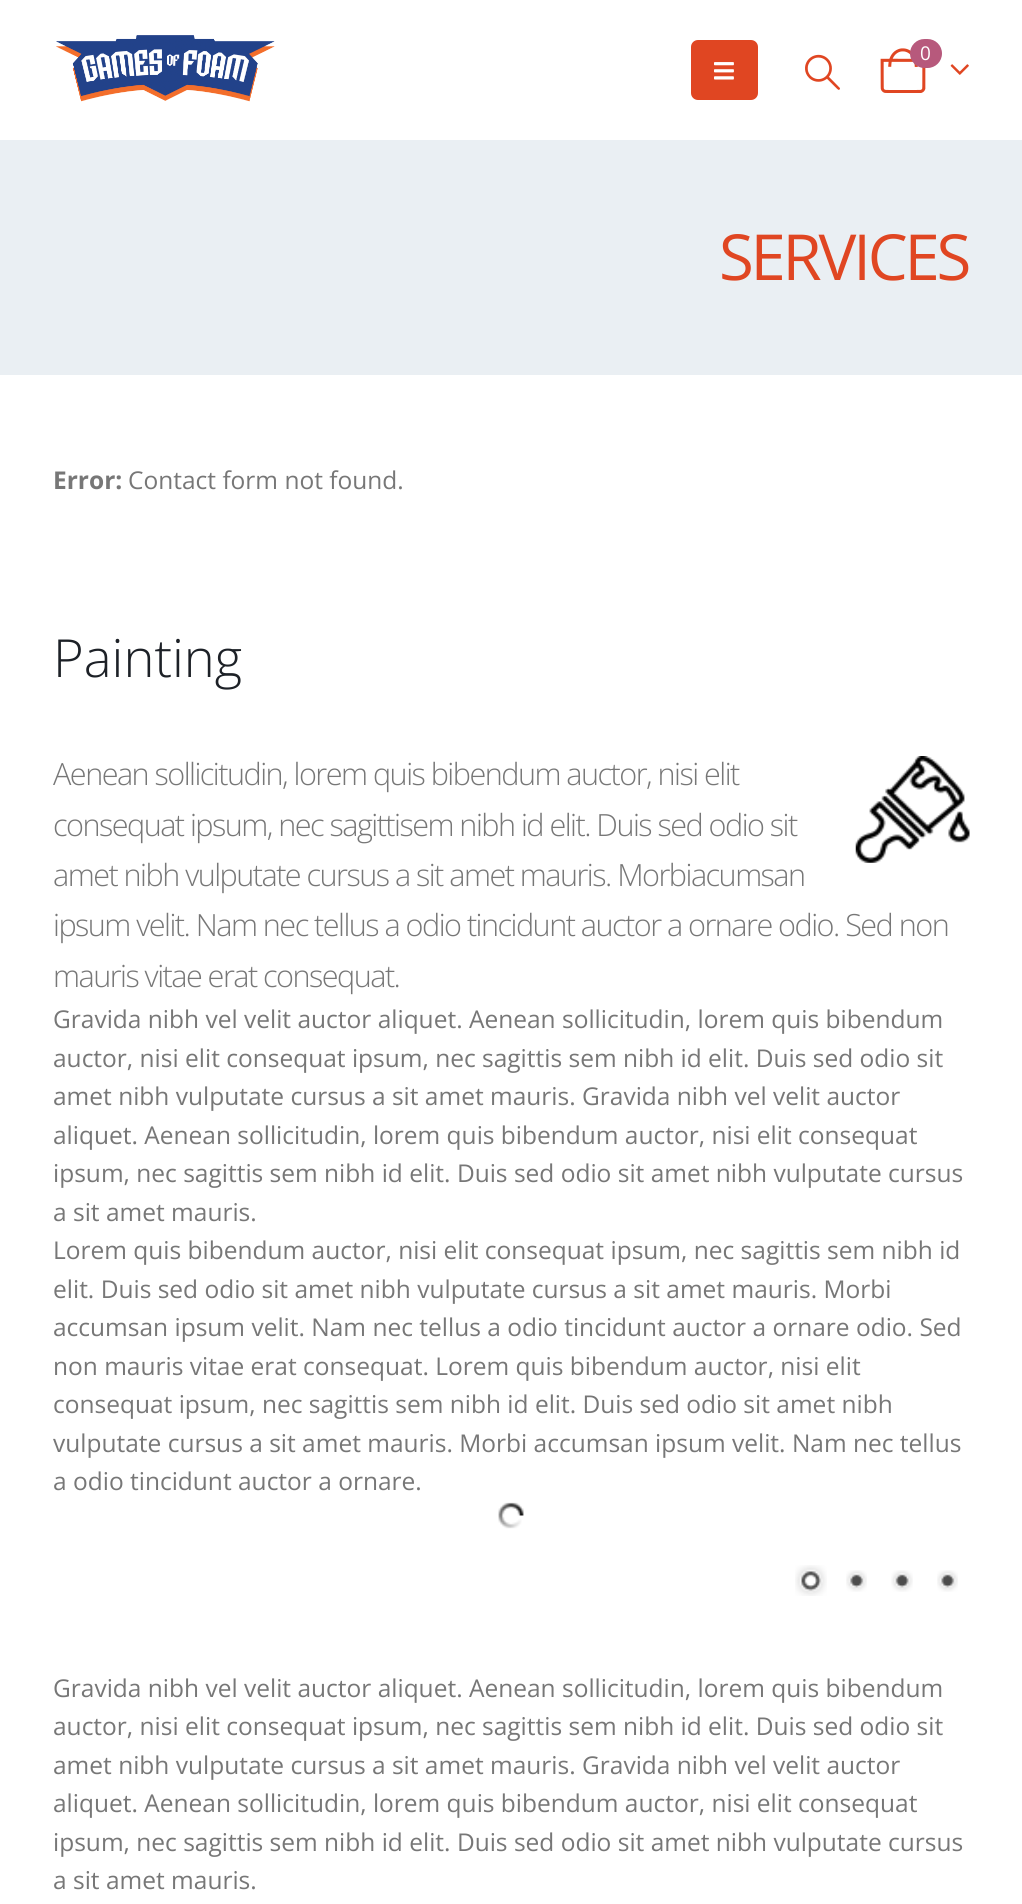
#include <cairo.h>
#include <math.h>
#include <stddef.h>


static void rgb(cairo_t *cr, int r, int g, int b)
{
	cairo_set_source_rgb(cr, r / 255.0, g / 255.0, b / 255.0);
}

static void face(cairo_t *cr, const char *family, double size, int italic, int bold)
{
	cairo_select_font_face(cr, family, italic ? CAIRO_FONT_SLANT_ITALIC : CAIRO_FONT_SLANT_NORMAL,
		bold ? CAIRO_FONT_WEIGHT_BOLD : CAIRO_FONT_WEIGHT_NORMAL);
	cairo_set_font_size(cr, size);
}

static void label(cairo_t *cr, double x, double y, const char *s)
{
	cairo_move_to(cr, x, y);
	cairo_show_text(cr, s);
}

static void tracked(cairo_t *cr, double x, double y, const char *s, double letter, double word)
{
	cairo_move_to(cr, x, y);
	while (*s) {
		char ch[5] = {0};
		int n = 0;
		do ch[n++] = *s++; while ((*s & 0xC0) == 0x80);
		cairo_show_text(cr, ch);
		cairo_rel_move_to(cr, letter + word * (*ch == ' '), 0);
	}
}

static void rect(cairo_t *cr, double x, double y, double w, double h)
{
	cairo_rectangle(cr, x, y, w, h);
	cairo_fill(cr);
}

static void rrect(cairo_t *cr, double x, double y, double w, double h, double r)
{
	cairo_new_sub_path(cr);
	cairo_arc(cr, x + w - r, y + h - r, r, 0, M_PI / 2);
	cairo_arc(cr, x + r, y + h - r, r, M_PI / 2, M_PI);
	cairo_arc(cr, x + r, y + r, r, M_PI, 1.5 * M_PI);
	cairo_arc(cr, x + w - r, y + r, r, 1.5 * M_PI, 2 * M_PI);
	cairo_close_path(cr);
}

static void image(cairo_t *cr, const char *path, double x, double y, double w, double h)
{
	cairo_surface_t *image = cairo_image_surface_create_from_png(path);
	cairo_save(cr);
	cairo_set_source_surface(cr, image, x, y);
	cairo_rectangle(cr, x, y, w, h);
	cairo_fill(cr);
	cairo_restore(cr);
	cairo_surface_destroy(image);
}

static void draw(cairo_t *cr) {
	rgb(cr, 255, 255, 255);
	cairo_paint(cr);
	image(cr, "image0.png", 56, 35, 219, 67);
	rgb(cr, 224, 70, 34);
	rrect(cr, 691, 40, 67, 60, 7);
	cairo_fill(cr);
	image(cr, "image1.png", 714, 62, 20, 18);
	image(cr, "image2.png", 805, 54, 35, 36);
	image(cr, "image3.png", 880, 48, 46, 45);
	rgb(cr, 183, 89, 124);
	rrect(cr, 910, 39, 32, 29, 14.5);
	cairo_fill(cr);
	face(cr, "Open Sans", 19, 0, 0);
	rgb(cr, 255, 255, 255);
	label(cr, 920, 60, "0");
	image(cr, "image4.png", 950, 64, 19, 11);
	rgb(cr, 234, 239, 243);
	rect(cr, 0, 140, 1022, 235);
	face(cr, "Open Sans", 63.5, 0, 0);
	rgb(cr, 224, 70, 34);
	tracked(cr, 719, 280, "SERVICES", -3.25, 0);
	face(cr, "Open Sans", 24.5, 0, 1);
	rgb(cr, 119, 119, 119);
	label(cr, 53, 489, "Error:");
	face(cr, "Open Sans", 24.5, 0, 0);
	label(cr, 128, 489, "Contact form not found.");
	face(cr, "Open Sans Light", 52.5, 0, 0);
	rgb(cr, 29, 33, 39);
	label(cr, 53, 677, "Painting");
	face(cr, "Open Sans Light", 30.6, 0, 0);
	rgb(cr, 119, 119, 119);
	tracked(cr, 53, 785, "Aenean sollicitudin, lorem quis bibendum auctor, nisi elit", -1.53, 0);
	image(cr, "image5.png", 855, 756, 115, 107);
	tracked(cr, 53, 836, "consequat ipsum, nec sagittisem nibh id elit. Duis sed odio sit", -1.53, 0);
	tracked(cr, 53, 886, "amet nibh vulputate cursus a sit amet mauris. Morbiacumsan", -1.53, 0);
	tracked(cr, 53, 936, "ipsum velit. Nam nec tellus a odio tincidunt auctor a ornare odio. Sed non", -1.53, 0);
	tracked(cr, 53, 987, "mauris vitae erat consequat.", -1.53, 0);
	face(cr, "Open Sans", 24.5, 0, 0);
	label(cr, 53, 1028, "Gravida nibh vel velit auctor aliquet. Aenean sollicitudin, lorem quis bibendum");
	label(cr, 53, 1067, "auctor, nisi elit consequat ipsum, nec sagittis sem nibh id elit. Duis sed odio sit");
	label(cr, 53, 1105, "amet nibh vulputate cursus a sit amet mauris. Gravida nibh vel velit auctor");
	label(cr, 53, 1144, "aliquet. Aenean sollicitudin, lorem quis bibendum auctor, nisi elit consequat");
	label(cr, 53, 1182, "ipsum, nec sagittis sem nibh id elit. Duis sed odio sit amet nibh vulputate cursus");
	label(cr, 53, 1221, "a sit amet mauris.");
	label(cr, 53, 1259, "Lorem quis bibendum auctor, nisi elit consequat ipsum, nec sagittis sem nibh id");
	label(cr, 53, 1298, "elit. Duis sed odio sit amet nibh vulputate cursus a sit amet mauris. Morbi");
	label(cr, 53, 1336, "accumsan ipsum velit. Nam nec tellus a odio tincidunt auctor a ornare odio. Sed");
	label(cr, 53, 1375, "non mauris vitae erat consequat. Lorem quis bibendum auctor, nisi elit");
	label(cr, 53, 1413, "consequat ipsum, nec sagittis sem nibh id elit. Duis sed odio sit amet nibh");
	label(cr, 53, 1452, "vulputate cursus a sit amet mauris. Morbi accumsan ipsum velit. Nam nec tellus");
	label(cr, 53, 1490, "a odio tincidunt auctor a ornare.");
	image(cr, "image6.png", 498, 1502, 26, 27);
	image(cr, "image7.png", 795, 1565, 32, 31);
	image(cr, "image8.png", 846, 1570, 21, 22);
	image(cr, "image9.png", 891, 1570, 22, 22);
	image(cr, "image10.png", 937, 1570, 21, 22);
	label(cr, 53, 1697, "Gravida nibh vel velit auctor aliquet. Aenean sollicitudin, lorem quis bibendum");
	label(cr, 53, 1735, "auctor, nisi elit consequat ipsum, nec sagittis sem nibh id elit. Duis sed odio sit");
	label(cr, 53, 1774, "amet nibh vulputate cursus a sit amet mauris. Gravida nibh vel velit auctor");
	label(cr, 53, 1812, "aliquet. Aenean sollicitudin, lorem quis bibendum auctor, nisi elit consequat");
	label(cr, 53, 1851, "ipsum, nec sagittis sem nibh id elit. Duis sed odio sit amet nibh vulputate cursus");
	label(cr, 53, 1889, "a sit amet mauris.");
}

int main(void) {
	cairo_surface_t *surface = cairo_image_surface_create(CAIRO_FORMAT_RGB24, 1022, 1904);
	cairo_t *cr = cairo_create(surface);
	cairo_font_options_t *options = cairo_font_options_create();
	cairo_font_options_set_hint_metrics(options, CAIRO_HINT_METRICS_OFF);
	cairo_font_options_set_hint_style(options, CAIRO_HINT_STYLE_NONE);
	cairo_set_font_options(cr, options);
	cairo_set_miter_limit(cr, 4);
	draw(cr);
	cairo_surface_write_to_png(surface, "render.png");
	cairo_font_options_destroy(options);
	cairo_destroy(cr);
	cairo_surface_destroy(surface);
	return 0;
}
